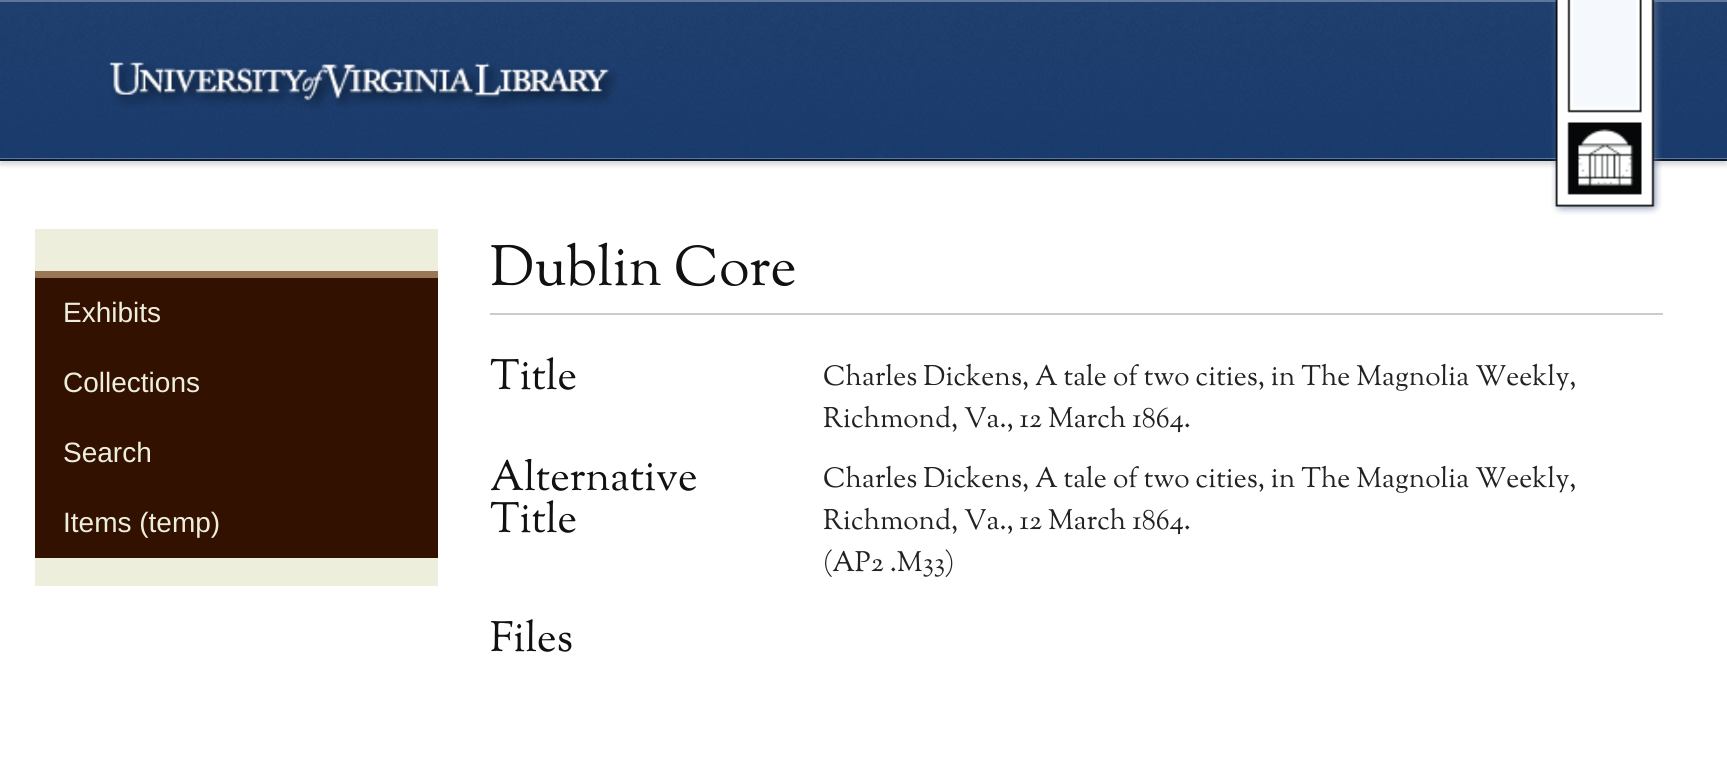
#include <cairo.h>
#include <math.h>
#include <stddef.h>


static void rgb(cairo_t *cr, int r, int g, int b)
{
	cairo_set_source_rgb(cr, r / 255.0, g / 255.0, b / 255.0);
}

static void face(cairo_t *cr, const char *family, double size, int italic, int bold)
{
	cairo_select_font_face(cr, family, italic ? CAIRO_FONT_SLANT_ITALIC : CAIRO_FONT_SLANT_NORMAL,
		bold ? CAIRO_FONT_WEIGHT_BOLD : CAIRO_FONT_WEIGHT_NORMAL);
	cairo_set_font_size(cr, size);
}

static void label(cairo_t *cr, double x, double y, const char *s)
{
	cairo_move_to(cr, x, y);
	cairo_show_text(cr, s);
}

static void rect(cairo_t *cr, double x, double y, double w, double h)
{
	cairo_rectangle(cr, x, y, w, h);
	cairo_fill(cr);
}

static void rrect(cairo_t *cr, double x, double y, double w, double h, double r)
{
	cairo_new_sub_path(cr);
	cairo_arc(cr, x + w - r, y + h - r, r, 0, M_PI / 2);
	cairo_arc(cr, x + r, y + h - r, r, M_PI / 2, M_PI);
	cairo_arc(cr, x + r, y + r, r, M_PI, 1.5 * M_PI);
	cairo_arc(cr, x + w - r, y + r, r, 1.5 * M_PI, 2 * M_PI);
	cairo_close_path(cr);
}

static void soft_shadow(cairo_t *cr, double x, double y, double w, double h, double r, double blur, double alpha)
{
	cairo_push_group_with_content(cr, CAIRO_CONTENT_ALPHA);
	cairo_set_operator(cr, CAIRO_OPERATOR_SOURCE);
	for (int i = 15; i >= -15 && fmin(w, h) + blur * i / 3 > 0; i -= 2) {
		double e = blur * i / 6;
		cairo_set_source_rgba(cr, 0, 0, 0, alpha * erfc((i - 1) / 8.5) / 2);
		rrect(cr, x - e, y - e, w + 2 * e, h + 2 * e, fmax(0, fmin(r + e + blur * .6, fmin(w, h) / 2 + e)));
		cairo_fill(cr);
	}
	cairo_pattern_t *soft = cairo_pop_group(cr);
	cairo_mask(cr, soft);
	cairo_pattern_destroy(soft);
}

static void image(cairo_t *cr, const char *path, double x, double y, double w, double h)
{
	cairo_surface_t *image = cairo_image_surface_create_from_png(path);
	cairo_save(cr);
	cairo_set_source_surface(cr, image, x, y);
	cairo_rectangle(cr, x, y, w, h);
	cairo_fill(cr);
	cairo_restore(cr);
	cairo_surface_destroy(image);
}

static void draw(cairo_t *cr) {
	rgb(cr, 255, 255, 255);
	cairo_paint(cr);
	rgb(cr, 120, 120, 120);
	soft_shadow(cr, 0, 4, 1727, 161, 0, 2.5, 0.3);
	image(cr, "image0.png", 0, 2, 1727, 156);
	rgb(cr, 93, 118, 154);
	rect(cr, 0, 158, 1727, 1);
	rect(cr, 0, 0, 1727, 2);
	rgb(cr, 12, 26, 50);
	rect(cr, 0, 159, 1727, 2);
	image(cr, "image1.png", 109, 62, 508, 48);
	image(cr, "image2.png", 1551, 0, 111, 215);
	rgb(cr, 238, 238, 221);
	rect(cr, 35, 229, 403, 357);
	rgb(cr, 153, 119, 85);
	rect(cr, 35, 271, 403, 7);
	rgb(cr, 51, 17, 0);
	rect(cr, 35, 278, 403, 280);
	face(cr, "Liberation Sans", 28, 0, 0);
	rgb(cr, 238, 238, 221);
	label(cr, 63, 322, "Exhibits");
	label(cr, 63, 392, "Collections");
	label(cr, 63, 462, "Search");
	label(cr, 63, 532, "Items (temp)");
	rgb(cr, 204, 204, 204);
	rect(cr, 490, 313, 1173, 2);
	face(cr, "OFL Sorts Mill Goudy TT Medium", 56, 0, 0);
	rgb(cr, 17, 17, 17);
	label(cr, 490, 285, "Dublin Core");
	face(cr, "OFL Sorts Mill Goudy TT Medium", 42, 0, 0);
	label(cr, 490, 389, "Title");
	face(cr, "OFL Sorts Mill Goudy TT Medium", 28, 0, 0);
	rgb(cr, 34, 34, 34);
	label(cr, 823, 385, "Charles Dickens, A tale of two cities, in The Magnolia Weekly,");
	label(cr, 823, 427, "Richmond, Va., 12 March 1864.");
	cairo_save(cr);
	cairo_rectangle(cr, 490, 459, 1173, 126);
	cairo_clip(cr);
	face(cr, "OFL Sorts Mill Goudy TT Medium", 42, 0, 0);
	rgb(cr, 17, 17, 17);
	label(cr, 490, 490, "Alternative");
	cairo_restore(cr);
	face(cr, "OFL Sorts Mill Goudy TT Medium", 42, 0, 0);
	rgb(cr, 17, 17, 17);
	label(cr, 490, 532, "Title");
	face(cr, "OFL Sorts Mill Goudy TT Medium", 28, 0, 0);
	rgb(cr, 34, 34, 34);
	label(cr, 823, 487, "Charles Dickens, A tale of two cities, in The Magnolia Weekly,");
	label(cr, 823, 529, "Richmond, Va., 12 March 1864.");
	label(cr, 823, 571, "(AP2 .M33)");
	face(cr, "OFL Sorts Mill Goudy TT Medium", 42, 0, 0);
	rgb(cr, 17, 17, 17);
	label(cr, 490, 651, "Files");
}

int main(void) {
	cairo_surface_t *surface = cairo_image_surface_create(CAIRO_FORMAT_RGB24, 1727, 761);
	cairo_t *cr = cairo_create(surface);
	cairo_font_options_t *options = cairo_font_options_create();
	cairo_font_options_set_hint_metrics(options, CAIRO_HINT_METRICS_OFF);
	cairo_font_options_set_hint_style(options, CAIRO_HINT_STYLE_NONE);
	cairo_set_font_options(cr, options);
	cairo_set_miter_limit(cr, 4);
	draw(cr);
	cairo_surface_write_to_png(surface, "render.png");
	cairo_font_options_destroy(options);
	cairo_destroy(cr);
	cairo_surface_destroy(surface);
	return 0;
}
